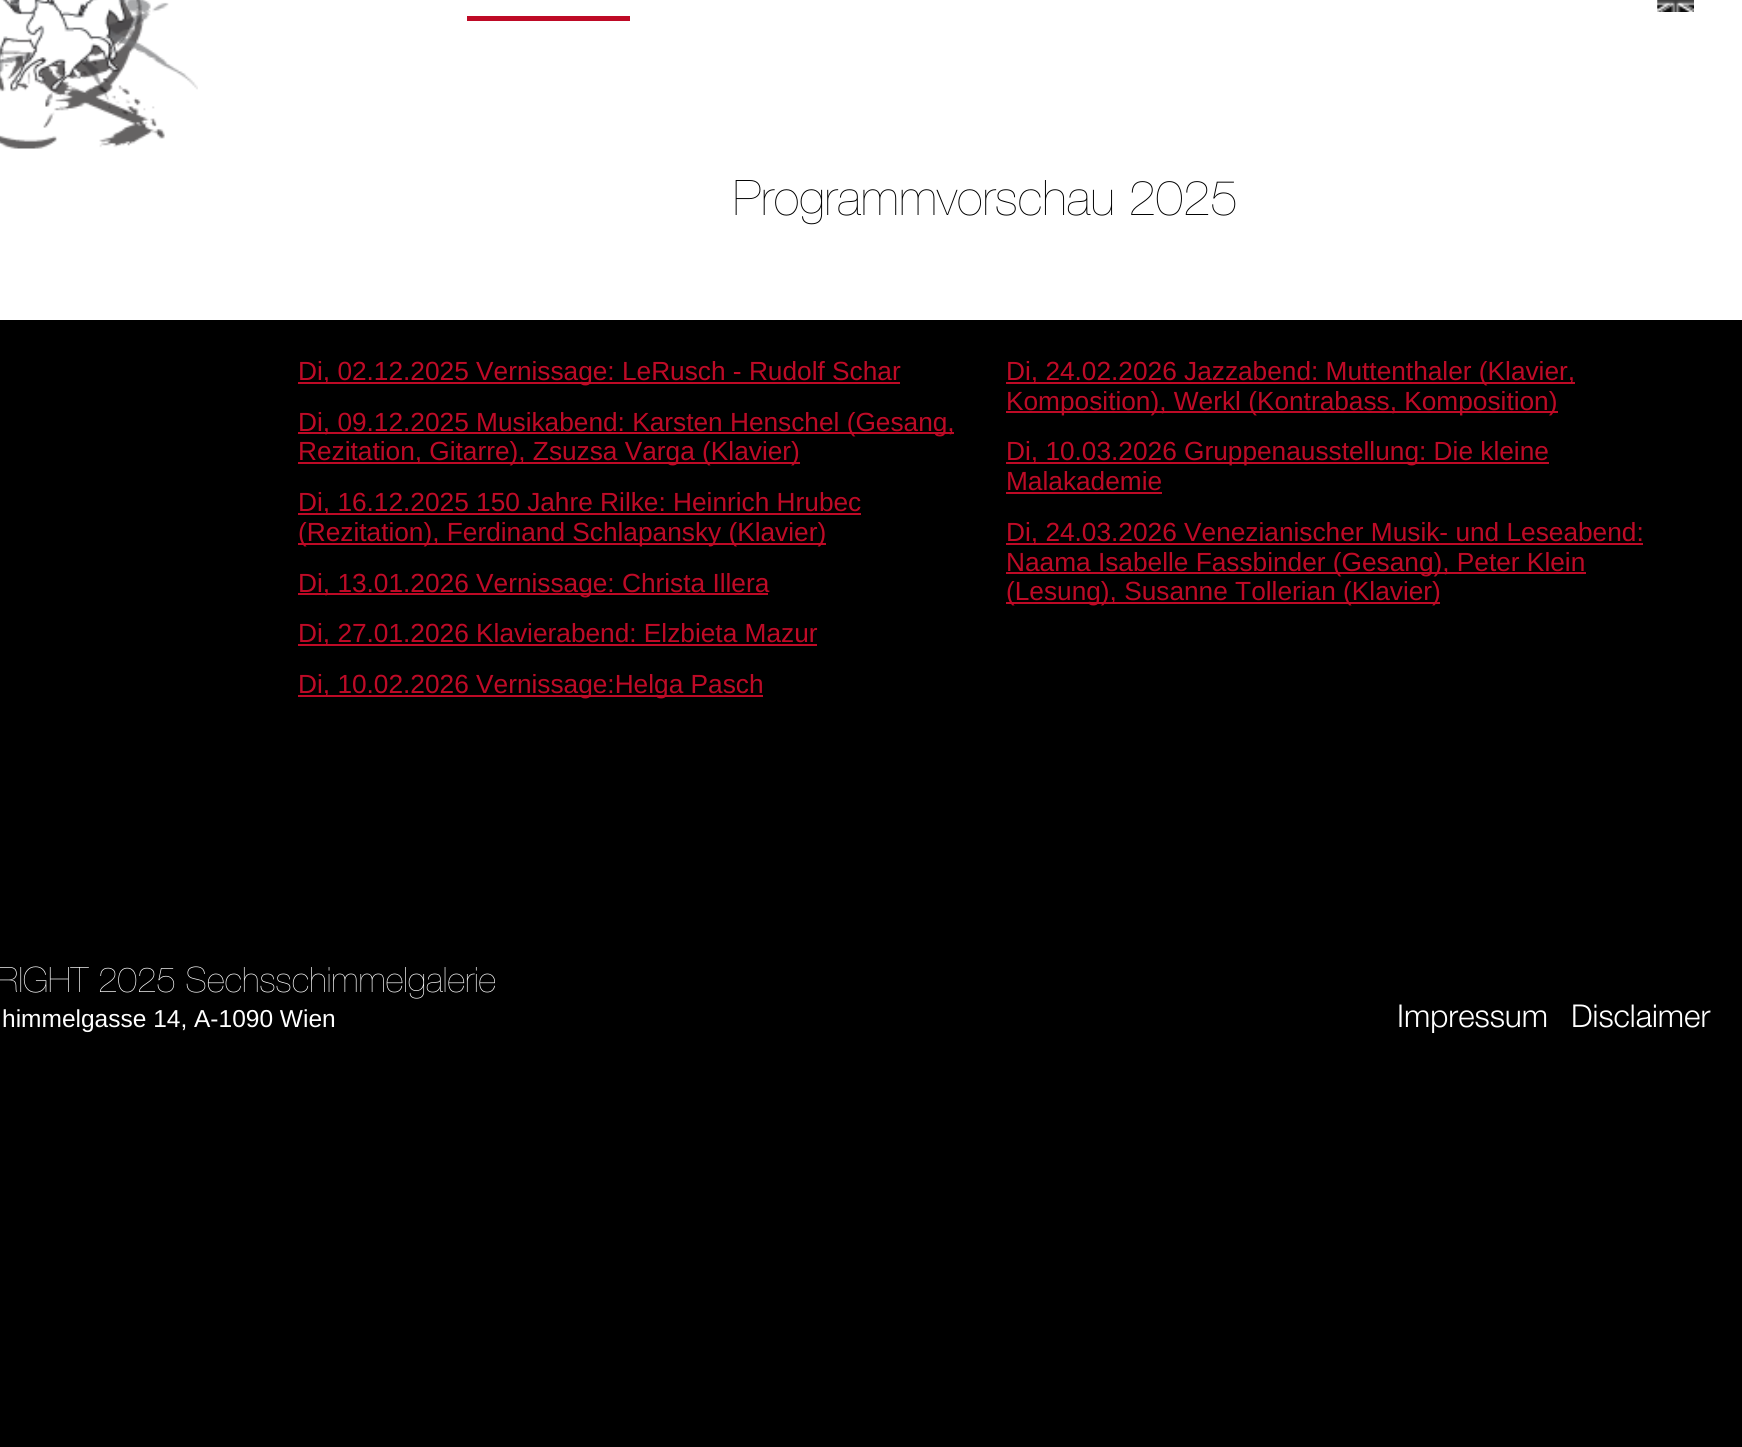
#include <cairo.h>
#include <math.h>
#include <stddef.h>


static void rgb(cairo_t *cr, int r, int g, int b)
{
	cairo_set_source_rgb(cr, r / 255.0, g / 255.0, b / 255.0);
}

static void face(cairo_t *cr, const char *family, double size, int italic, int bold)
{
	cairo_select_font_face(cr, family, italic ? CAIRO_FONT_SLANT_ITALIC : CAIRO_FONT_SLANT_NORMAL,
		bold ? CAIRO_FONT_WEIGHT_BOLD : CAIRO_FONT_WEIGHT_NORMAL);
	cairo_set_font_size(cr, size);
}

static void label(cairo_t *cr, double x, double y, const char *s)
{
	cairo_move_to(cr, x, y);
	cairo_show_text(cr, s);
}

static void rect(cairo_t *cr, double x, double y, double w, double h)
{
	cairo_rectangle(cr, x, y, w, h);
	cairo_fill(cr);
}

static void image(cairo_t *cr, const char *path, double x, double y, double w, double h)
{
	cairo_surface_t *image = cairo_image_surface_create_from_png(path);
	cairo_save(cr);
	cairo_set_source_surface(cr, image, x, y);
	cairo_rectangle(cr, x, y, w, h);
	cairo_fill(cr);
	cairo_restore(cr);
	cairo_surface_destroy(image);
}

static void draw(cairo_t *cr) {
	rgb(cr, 255, 255, 255);
	cairo_paint(cr);
	image(cr, "image0.png", 0, 0, 198, 149);
	image(cr, "image1.png", 1657, 0, 37, 12);
	rgb(cr, 190, 10, 38);
	rect(cr, 467, 16, 163, 5);
	face(cr, "Helvetica Neue ExtraLight", 49, 0, 0);
	rgb(cr, 0, 0, 0);
	label(cr, 733, 215, "Programmvorschau 2025");
	rect(cr, 0, 320, 1742, 1127);
	rgb(cr, 190, 10, 38);
	rect(cr, 298, 382, 602, 2);
	face(cr, "Liberation Sans", 26.25, 0, 0);
	label(cr, 298, 380, "Di, 02.12.2025 Vernissage: LeRusch - Rudolf Schar");
	rect(cr, 298, 432, 656, 2);
	label(cr, 298, 431, "Di, 09.12.2025 Musikabend: Karsten Henschel (Gesang,");
	rect(cr, 298, 462, 502, 2);
	label(cr, 298, 460, "Rezitation, Gitarre), Zsuzsa Varga (Klavier)");
	rect(cr, 298, 513, 563, 2);
	label(cr, 298, 511, "Di, 16.12.2025 150 Jahre Rilke: Heinrich Hrubec");
	rect(cr, 298, 543, 528, 2);
	label(cr, 298, 541, "(Rezitation), Ferdinand Schlapansky (Klavier)");
	rect(cr, 298, 593, 470, 2);
	label(cr, 298, 592, "Di, 13.01.2026 Vernissage: Christa Illera");
	rect(cr, 298, 644, 519, 2);
	label(cr, 298, 642, "Di, 27.01.2026 Klavierabend: Elzbieta Mazur");
	rect(cr, 298, 695, 465, 2);
	label(cr, 298, 693, "Di, 10.02.2026 Vernissage:Helga Pasch");
	rect(cr, 1006, 382, 569, 2);
	label(cr, 1006, 380, "Di, 24.02.2026 Jazzabend: Muttenthaler (Klavier,");
	rect(cr, 1006, 411, 552, 2);
	label(cr, 1006, 410, "Komposition), Werkl (Kontrabass, Komposition)");
	rect(cr, 1006, 462, 543, 2);
	label(cr, 1006, 460, "Di, 10.03.2026 Gruppenausstellung: Die kleine");
	label(cr, 1006, 490, "Malakademie");
	rect(cr, 1006, 492, 156, 2);
	rect(cr, 1006, 543, 637, 2);
	label(cr, 1006, 541, "Di, 24.03.2026 Venezianischer Musik- und Leseabend:");
	rect(cr, 1006, 572, 580, 2);
	label(cr, 1006, 571, "Naama Isabelle Fassbinder (Gesang), Peter Klein");
	rect(cr, 1006, 602, 434, 2);
	label(cr, 1006, 600, "(Lesung), Susanne Tollerian (Klavier)");
	face(cr, "Helvetica Neue ExtraLight", 35, 0, 0);
	rgb(cr, 255, 255, 255);
	label(cr, -3, 992, "RIGHT 2025 Sechsschimmelgalerie");
	face(cr, "Liberation Sans", 24.5, 0, 0);
	label(cr, 2, 1027, "himmelgasse 14, A-1090 Wien");
	face(cr, "Helvetica Neue Light", 31.5, 0, 0);
	label(cr, 1397, 1027, "Impressum");
	label(cr, 1571, 1027, "Disclaimer");
}

int main(void) {
	cairo_surface_t *surface = cairo_image_surface_create(CAIRO_FORMAT_RGB24, 1742, 1447);
	cairo_t *cr = cairo_create(surface);
	cairo_font_options_t *options = cairo_font_options_create();
	cairo_font_options_set_hint_metrics(options, CAIRO_HINT_METRICS_OFF);
	cairo_font_options_set_hint_style(options, CAIRO_HINT_STYLE_NONE);
	cairo_set_font_options(cr, options);
	cairo_set_miter_limit(cr, 4);
	draw(cr);
	cairo_surface_write_to_png(surface, "render.png");
	cairo_font_options_destroy(options);
	cairo_destroy(cr);
	cairo_surface_destroy(surface);
	return 0;
}
